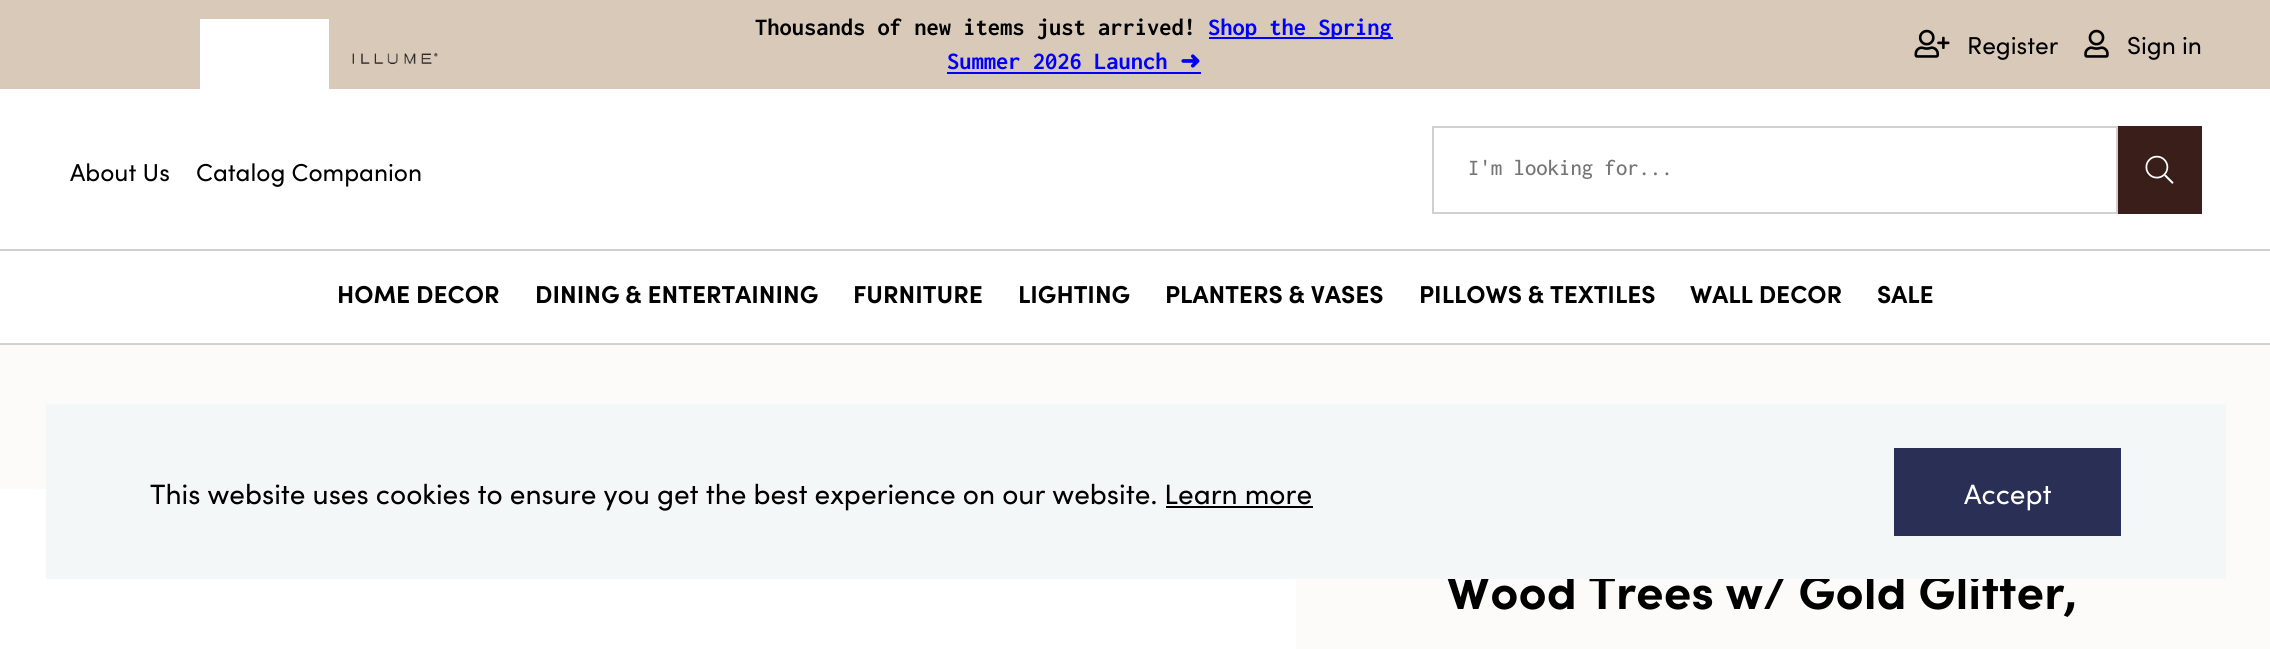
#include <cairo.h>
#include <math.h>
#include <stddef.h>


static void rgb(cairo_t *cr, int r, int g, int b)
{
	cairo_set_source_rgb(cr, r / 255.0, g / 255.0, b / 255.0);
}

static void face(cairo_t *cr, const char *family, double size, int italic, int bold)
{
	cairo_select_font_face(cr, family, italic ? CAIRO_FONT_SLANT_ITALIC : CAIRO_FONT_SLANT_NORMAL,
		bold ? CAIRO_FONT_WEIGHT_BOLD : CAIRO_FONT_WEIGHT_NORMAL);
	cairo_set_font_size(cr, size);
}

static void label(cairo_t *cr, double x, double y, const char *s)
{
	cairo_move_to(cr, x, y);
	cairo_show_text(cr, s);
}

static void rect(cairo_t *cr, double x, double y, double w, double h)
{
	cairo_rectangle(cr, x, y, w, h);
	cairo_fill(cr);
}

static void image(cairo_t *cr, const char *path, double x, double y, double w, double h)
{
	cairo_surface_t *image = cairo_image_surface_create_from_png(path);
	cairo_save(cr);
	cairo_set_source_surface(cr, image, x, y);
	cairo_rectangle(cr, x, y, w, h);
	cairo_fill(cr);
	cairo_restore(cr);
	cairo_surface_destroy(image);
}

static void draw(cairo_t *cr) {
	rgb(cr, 252, 251, 249);
	cairo_paint(cr);
	rgb(cr, 255, 255, 255);
	rect(cr, 0, 89, 2270, 254);
	rgb(cr, 217, 201, 184);
	rect(cr, 0, 0, 2270, 89);
	rgb(cr, 255, 255, 255);
	rect(cr, 200, 19, 129, 70);
	image(cr, "image0.png", 352, 53, 86, 12);
	face(cr, "Inconsolata", 24.5, 0, 1);
	rgb(cr, 0, 0, 0);
	label(cr, 755, 35, "Thousands of new items just arrived!");
	rgb(cr, 0, 0, 255);
	rect(cr, 1209, 37, 184, 2);
	label(cr, 1208, 35, "Shop the Spring");
	label(cr, 947, 69, "Summer 2026 Launch");
	face(cr, "DejaVu Sans", 24.5, 0, 1);
	label(cr, 1180, 69, "➜");
	rect(cr, 947, 72, 254, 2);
	image(cr, "image1.png", 1914, 29, 36, 29);
	face(cr, "Sofia", 24.5, 0, 0);
	rgb(cr, 0, 0, 0);
	label(cr, 1967, 54, "Register");
	image(cr, "image2.png", 2084, 29, 25, 29);
	label(cr, 2127, 54, "Sign in");
	label(cr, 70, 181, "About Us");
	label(cr, 196, 181, "Catalog Companion");
	cairo_rectangle(cr, 1433, 127, 684, 86);
	rgb(cr, 208, 208, 208);
	cairo_stroke(cr);
	face(cr, "Inconsolata Medium", 22.75, 0, 0);
	rgb(cr, 117, 117, 117);
	label(cr, 1468, 175, "I'm looking for...");
	rgb(cr, 57, 30, 25);
	rect(cr, 2118, 126, 84, 88);
	image(cr, "image3.png", 2145, 155, 29, 29);
	rgb(cr, 208, 208, 208);
	rect(cr, 0, 249, 2270, 2);
	rect(cr, 0, 343, 2270, 2);
	face(cr, "Sofia", 24.5, 0, 1);
	rgb(cr, 0, 0, 0);
	label(cr, 337, 303, "HOME DECOR");
	label(cr, 535, 303, "DINING & ENTERTAINING");
	label(cr, 853, 303, "FURNITURE");
	label(cr, 1018, 303, "LIGHTING");
	label(cr, 1165, 303, "PLANTERS & VASES");
	label(cr, 1419, 303, "PILLOWS & TEXTILES");
	label(cr, 1690, 303, "WALL DECOR");
	label(cr, 1877, 303, "SALE");
	rgb(cr, 255, 255, 255);
	rect(cr, 0, 489, 1296, 160);
	face(cr, "Sofia", 49, 0, 1);
	rgb(cr, 0, 0, 0);
	label(cr, 1446, 609, "Wood Trees w/ Gold Glitter,");
	rgb(cr, 244, 247, 247);
	rect(cr, 46, 404, 2180, 175);
	face(cr, "Sofia", 28, 0, 0);
	rgb(cr, 0, 0, 0);
	label(cr, 150, 504, "This website uses cookies to ensure you get the best experience on our website. Learn more");
	rect(cr, 1166, 506, 147, 2);
	rgb(cr, 42, 47, 86);
	rect(cr, 1894, 448, 227, 88);
	rgb(cr, 255, 255, 255);
	label(cr, 1964, 504, "Accept");
}

int main(void) {
	cairo_surface_t *surface = cairo_image_surface_create(CAIRO_FORMAT_RGB24, 2270, 649);
	cairo_t *cr = cairo_create(surface);
	cairo_font_options_t *options = cairo_font_options_create();
	cairo_font_options_set_hint_metrics(options, CAIRO_HINT_METRICS_OFF);
	cairo_font_options_set_hint_style(options, CAIRO_HINT_STYLE_NONE);
	cairo_set_font_options(cr, options);
	cairo_set_miter_limit(cr, 4);
	draw(cr);
	cairo_surface_write_to_png(surface, "render.png");
	cairo_font_options_destroy(options);
	cairo_destroy(cr);
	cairo_surface_destroy(surface);
	return 0;
}
